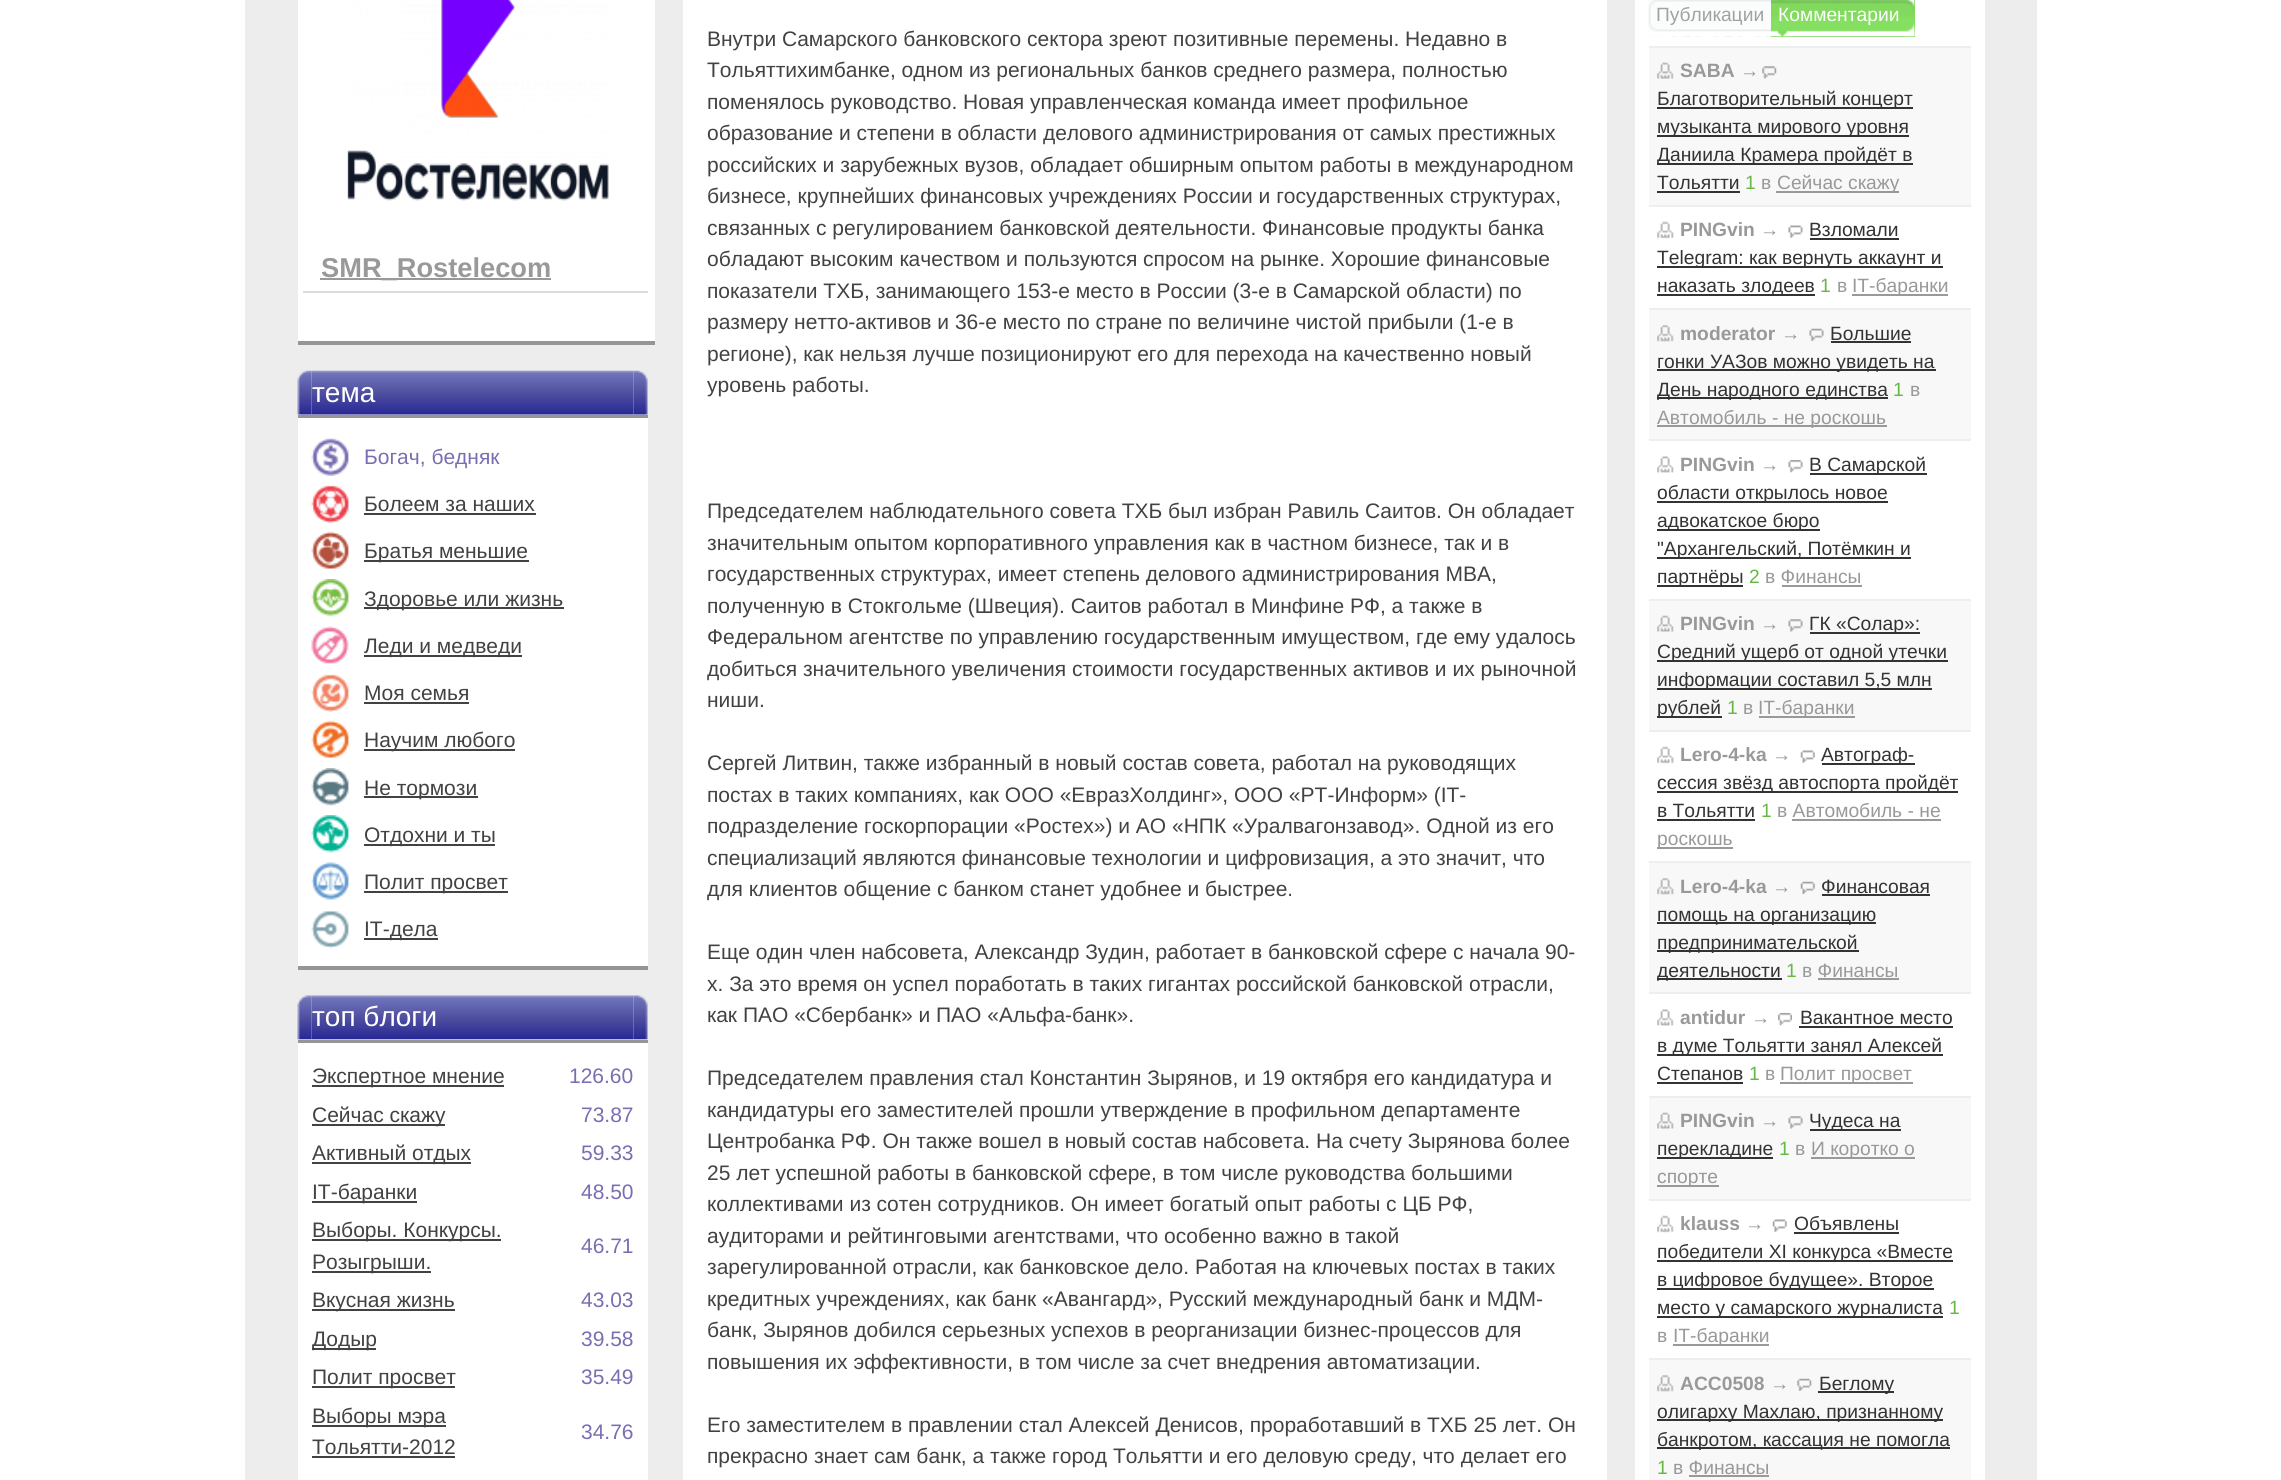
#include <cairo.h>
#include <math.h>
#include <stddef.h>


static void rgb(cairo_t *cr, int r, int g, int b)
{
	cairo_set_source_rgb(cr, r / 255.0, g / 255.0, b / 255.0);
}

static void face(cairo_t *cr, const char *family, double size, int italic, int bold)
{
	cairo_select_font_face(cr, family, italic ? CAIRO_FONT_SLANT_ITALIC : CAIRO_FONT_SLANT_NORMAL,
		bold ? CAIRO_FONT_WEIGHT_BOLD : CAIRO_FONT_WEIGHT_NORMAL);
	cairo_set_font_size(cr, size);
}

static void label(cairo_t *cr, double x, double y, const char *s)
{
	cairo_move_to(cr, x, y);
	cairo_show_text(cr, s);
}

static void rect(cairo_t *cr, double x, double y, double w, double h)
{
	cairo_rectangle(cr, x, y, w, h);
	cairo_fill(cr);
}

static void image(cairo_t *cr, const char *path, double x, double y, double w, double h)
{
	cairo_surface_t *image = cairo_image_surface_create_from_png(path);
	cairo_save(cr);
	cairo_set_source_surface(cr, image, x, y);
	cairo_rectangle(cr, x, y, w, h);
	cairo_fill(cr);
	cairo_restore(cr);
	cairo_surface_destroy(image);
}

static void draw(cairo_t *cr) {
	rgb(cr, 255, 255, 255);
	cairo_paint(cr);
	rgb(cr, 237, 237, 237);
	rect(cr, 245, 0, 53, 1480);
	rect(cr, 298, 345, 357, 1135);
	rgb(cr, 221, 221, 221);
	rect(cr, 303, 291, 346, 2);
	image(cr, "image0.png", 347, 0, 262, 201);
	rgb(cr, 153, 153, 153);
	rect(cr, 320, 278, 231, 2);
	face(cr, "Liberation Sans", 27.25, 0, 1);
	label(cr, 321, 277, "SMR_Rostelecom");
	rgb(cr, 255, 255, 255);
	rect(cr, 648, 291, 1, 2);
	rgb(cr, 149, 149, 149);
	rect(cr, 298, 341, 357, 4);
	image(cr, "image1.png", 297, 370, 15, 45);
	image(cr, "image2.png", 311, 370, 323, 45);
	face(cr, "Liberation Sans", 28, 0, 0);
	rgb(cr, 255, 255, 255);
	label(cr, 312, 402, "тема");
	image(cr, "image3.png", 633, 370, 15, 45);
	rgb(cr, 149, 149, 149);
	rect(cr, 298, 415, 350, 3);
	rgb(cr, 255, 255, 255);
	rect(cr, 298, 418, 350, 14);
	rect(cr, 298, 432, 350, 520);
	image(cr, "image4.png", 311, 438, 38, 38);
	face(cr, "Liberation Sans", 21, 0, 0);
	rgb(cr, 121, 110, 177);
	label(cr, 364, 464, "Богач, бедняк");
	image(cr, "image5.png", 311, 485, 38, 38);
	rgb(cr, 66, 66, 66);
	label(cr, 364, 511, "Болеем за наших");
	rect(cr, 364, 513, 172, 2);
	image(cr, "image6.png", 311, 531, 38, 38);
	rect(cr, 364, 560, 165, 2);
	label(cr, 364, 558, "Братья меньшие");
	image(cr, "image7.png", 311, 579, 38, 38);
	rect(cr, 364, 607, 200, 2);
	label(cr, 364, 606, "Здоровье или жизнь");
	image(cr, "image8.png", 311, 626, 38, 38);
	rect(cr, 364, 655, 158, 2);
	label(cr, 364, 653, "Леди и медведи");
	image(cr, "image9.png", 311, 674, 38, 38);
	label(cr, 364, 700, "Моя семья");
	rect(cr, 364, 702, 105, 2);
	image(cr, "image10.png", 311, 720, 38, 38);
	rect(cr, 364, 749, 151, 2);
	label(cr, 364, 747, "Научим любого");
	image(cr, "image11.png", 311, 768, 38, 38);
	rect(cr, 364, 796, 114, 2);
	label(cr, 364, 795, "Не тормози");
	image(cr, "image12.png", 311, 815, 38, 38);
	rect(cr, 364, 844, 131, 2);
	label(cr, 364, 842, "Отдохни и ты");
	image(cr, "image13.png", 311, 862, 38, 38);
	rect(cr, 364, 891, 144, 2);
	label(cr, 364, 889, "Полит просвет");
	image(cr, "image14.png", 311, 911, 38, 38);
	rect(cr, 364, 938, 74, 2);
	label(cr, 364, 936, "IT-дела");
	rgb(cr, 255, 255, 255);
	rect(cr, 298, 952, 350, 14);
	rgb(cr, 149, 149, 149);
	rect(cr, 298, 966, 350, 4);
	image(cr, "image15.png", 297, 995, 15, 45);
	image(cr, "image16.png", 311, 995, 323, 45);
	face(cr, "Liberation Sans", 28, 0, 0);
	rgb(cr, 255, 255, 255);
	label(cr, 312, 1026, "топ блоги");
	image(cr, "image17.png", 633, 995, 15, 45);
	rgb(cr, 149, 149, 149);
	rect(cr, 298, 1040, 350, 3);
	rgb(cr, 255, 255, 255);
	rect(cr, 298, 1043, 350, 14);
	rect(cr, 298, 1057, 350, 423);
	rgb(cr, 66, 66, 66);
	rect(cr, 312, 1085, 192, 2);
	face(cr, "Liberation Sans", 21, 0, 0);
	label(cr, 312, 1083, "Экспертное мнение");
	rgb(cr, 121, 110, 177);
	label(cr, 569, 1083, "126.60");
	rgb(cr, 66, 66, 66);
	rect(cr, 312, 1124, 133, 2);
	label(cr, 312, 1122, "Сейчас скажу");
	rgb(cr, 121, 110, 177);
	label(cr, 581, 1122, "73.87");
	rgb(cr, 66, 66, 66);
	rect(cr, 312, 1162, 159, 2);
	label(cr, 312, 1160, "Активный отдых");
	rgb(cr, 121, 110, 177);
	label(cr, 581, 1160, "59.33");
	rgb(cr, 66, 66, 66);
	rect(cr, 312, 1201, 105, 2);
	label(cr, 312, 1199, "IT-баранки");
	rgb(cr, 121, 110, 177);
	label(cr, 581, 1199, "48.50");
	rgb(cr, 66, 66, 66);
	rect(cr, 312, 1239, 189, 2);
	label(cr, 312, 1237, "Выборы. Конкурсы.");
	rect(cr, 312, 1271, 119, 2);
	label(cr, 312, 1269, "Розыгрыши.");
	rgb(cr, 121, 110, 177);
	label(cr, 581, 1253, "46.71");
	rgb(cr, 66, 66, 66);
	rect(cr, 312, 1309, 143, 2);
	label(cr, 312, 1307, "Вкусная жизнь");
	rgb(cr, 121, 110, 177);
	label(cr, 581, 1307, "43.03");
	rgb(cr, 66, 66, 66);
	rect(cr, 312, 1348, 64, 2);
	label(cr, 312, 1346, "Додыр");
	rgb(cr, 121, 110, 177);
	label(cr, 581, 1346, "39.58");
	rgb(cr, 66, 66, 66);
	rect(cr, 312, 1386, 143, 2);
	label(cr, 312, 1384, "Полит просвет");
	rgb(cr, 121, 110, 177);
	label(cr, 581, 1384, "35.49");
	rgb(cr, 66, 66, 66);
	rect(cr, 312, 1425, 134, 2);
	label(cr, 312, 1423, "Выборы мэра");
	label(cr, 312, 1454, "Тольятти-2012");
	rect(cr, 312, 1456, 143, 2);
	rgb(cr, 121, 110, 177);
	label(cr, 581, 1439, "34.76");
	rgb(cr, 237, 237, 237);
	rect(cr, 655, 0, 28, 1480);
	rgb(cr, 66, 66, 66);
	label(cr, 707, 46, "Внутри Самарского банковского сектора зреют позитивные перемены. Недавно в");
	label(cr, 707, 77, "Тольяттихимбанке, одном из региональных банков среднего размера, полностью");
	label(cr, 707, 109, "поменялось руководство. Новая управленческая команда имеет профильное");
	label(cr, 707, 140, "образование и степени в области делового администрирования от самых престижных");
	label(cr, 707, 172, "российских и зарубежных вузов, обладает обширным опытом работы в международном");
	label(cr, 707, 203, "бизнесе, крупнейших финансовых учреждениях России и государственных структурах,");
	label(cr, 707, 235, "связанных с регулированием банковской деятельности. Финансовые продукты банка");
	label(cr, 707, 266, "обладают высоким качеством и пользуются спросом на рынке. Хорошие финансовые");
	label(cr, 707, 298, "показатели ТХБ, занимающего 153-е место в России (3-е в Самарской области) по");
	label(cr, 707, 329, "размеру нетто-активов и 36-е место по стране по величине чистой прибыли (1-е в");
	label(cr, 707, 361, "регионе), как нельзя лучше позиционируют его для перехода на качественно новый");
	label(cr, 707, 392, "уровень работы.");
	label(cr, 707, 518, "Председателем наблюдательного совета ТХБ был избран Равиль Саитов. Он обладает");
	label(cr, 707, 550, "значительным опытом корпоративного управления как в частном бизнесе, так и в");
	label(cr, 707, 581, "государственных структурах, имеет степень делового администрирования МВА,");
	label(cr, 707, 613, "полученную в Стокгольме (Швеция). Саитов работал в Минфине РФ, а также в");
	label(cr, 707, 644, "Федеральном агентстве по управлению государственным имуществом, где ему удалось");
	cairo_save(cr);
	cairo_rectangle(cr, 707, 23, 875, 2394);
	cairo_clip(cr);
	label(cr, 707, 676, "добиться значительного увеличения стоимости государственных активов и их рыночной");
	cairo_restore(cr);
	label(cr, 707, 707, "ниши.");
	label(cr, 707, 770, "Сергей Литвин, также избранный в новый состав совета, работал на руководящих");
	label(cr, 707, 802, "постах в таких компаниях, как ООО «ЕвразХолдинг», ООО «РТ-Информ» (IT-");
	label(cr, 707, 833, "подразделение госкорпорации «Ростех») и АО «НПК «Уралвагонзавод». Одной из его");
	label(cr, 707, 865, "специализаций являются финансовые технологии и цифровизация, а это значит, что");
	cairo_save(cr);
	cairo_rectangle(cr, 707, 23, 875, 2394);
	cairo_clip(cr);
	label(cr, 707, 896, "для клиентов общение с банком станет удобнее и быстрее.");
	cairo_restore(cr);
	label(cr, 707, 959, "Еще один член набсовета, Александр Зудин, работает в банковской сфере с начала 90-");
	label(cr, 707, 991, "х. За это время он успел поработать в таких гигантах российской банковской отрасли,");
	label(cr, 707, 1022, "как ПАО «Сбербанк» и ПАО «Альфа-банк».");
	label(cr, 707, 1085, "Председателем правления стал Константин Зырянов, и 19 октября его кандидатура и");
	label(cr, 707, 1117, "кандидатуры его заместителей прошли утверждение в профильном департаменте");
	label(cr, 707, 1148, "Центробанка РФ. Он также вошел в новый состав набсовета. На счету Зырянова более");
	label(cr, 707, 1180, "25 лет успешной работы в банковской сфере, в том числе руководства большими");
	label(cr, 707, 1211, "коллективами из сотен сотрудников. Он имеет богатый опыт работы с ЦБ РФ,");
	label(cr, 707, 1243, "аудиторами и рейтинговыми агентствами, что особенно важно в такой");
	label(cr, 707, 1274, "зарегулированной отрасли, как банковское дело. Работая на ключевых постах в таких");
	label(cr, 707, 1306, "кредитных учреждениях, как банк «Авангард», Русский международный банк и МДМ-");
	label(cr, 707, 1337, "банк, Зырянов добился серьезных успехов в реорганизации бизнес-процессов для");
	label(cr, 707, 1369, "повышения их эффективности, в том числе за счет внедрения автоматизации.");
	label(cr, 707, 1432, "Его заместителем в правлении стал Алексей Денисов, проработавший в ТХБ 25 лет. Он");
	label(cr, 707, 1463, "прекрасно знает сам банк, а также город Тольятти и его деловую среду, что делает его");
	rgb(cr, 237, 237, 237);
	rect(cr, 1607, 0, 28, 1480);
	image(cr, "image18.png", 1648, 0, 123, 37);
	image(cr, "image19.png", 1648, 0, 9, 37);
	face(cr, "Liberation Sans", 19.25, 0, 0);
	rgb(cr, 162, 162, 162);
	label(cr, 1656, 21, "Публикации");
	rgb(cr, 129, 218, 94);
	rect(cr, 1771, 0, 144, 37);
	image(cr, "image20.png", 1771, 0, 144, 37);
	image(cr, "image21.png", 1778, 0, 9, 37);
	rgb(cr, 255, 255, 255);
	label(cr, 1778, 21, "Комментарии");
	image(cr, "image22.png", 1906, 0, 9, 37);
	rgb(cr, 248, 248, 248);
	rect(cr, 1649, 48, 322, 157);
	rgb(cr, 238, 238, 238);
	rect(cr, 1649, 46, 322, 2);
	rect(cr, 1649, 205, 322, 2);
	image(cr, "image23.png", 1657, 62, 17, 17);
	face(cr, "Liberation Sans", 19.25, 0, 1);
	rgb(cr, 153, 153, 153);
	label(cr, 1680, 77, "SABA");
	face(cr, "Liberation Sans", 19.25, 0, 0);
	label(cr, 1740, 77, "→");
	image(cr, "image24.png", 1762, 66, 15, 13);
	rgb(cr, 51, 51, 51);
	rect(cr, 1657, 107, 256, 2);
	label(cr, 1657, 105, "Благотворительный концерт");
	rect(cr, 1657, 135, 252, 2);
	label(cr, 1657, 133, "музыканта мирового уровня");
	rect(cr, 1657, 163, 256, 2);
	label(cr, 1657, 161, "Даниила Крамера пройдёт в");
	label(cr, 1657, 189, "Тольятти");
	rect(cr, 1657, 191, 83, 2);
	rgb(cr, 102, 183, 70);
	label(cr, 1745, 189, "1");
	rgb(cr, 153, 153, 153);
	label(cr, 1761, 189, "в");
	rect(cr, 1776, 191, 123, 2);
	label(cr, 1777, 189, "Сейчас скажу");
	image(cr, "image25.png", 1657, 221, 17, 18);
	face(cr, "Liberation Sans", 19.25, 0, 1);
	label(cr, 1680, 236, "PINGvin");
	face(cr, "Liberation Sans", 19.25, 0, 0);
	label(cr, 1760, 236, "→");
	image(cr, "image26.png", 1788, 225, 15, 13);
	rgb(cr, 51, 51, 51);
	label(cr, 1809, 236, "Взломали");
	rect(cr, 1810, 238, 89, 2);
	rect(cr, 1657, 266, 286, 2);
	label(cr, 1657, 264, "Telegram: как вернуть аккаунт и");
	rect(cr, 1657, 294, 158, 2);
	label(cr, 1657, 292, "наказать злодеев");
	rgb(cr, 102, 183, 70);
	label(cr, 1820, 292, "1");
	rgb(cr, 153, 153, 153);
	label(cr, 1837, 292, "в");
	rect(cr, 1852, 294, 96, 2);
	label(cr, 1852, 292, "IT-баранки");
	rgb(cr, 248, 248, 248);
	rect(cr, 1649, 310, 322, 129);
	rgb(cr, 238, 238, 238);
	rect(cr, 1649, 308, 322, 2);
	rect(cr, 1649, 439, 322, 2);
	image(cr, "image27.png", 1657, 325, 17, 17);
	face(cr, "Liberation Sans", 19.25, 0, 1);
	rgb(cr, 153, 153, 153);
	label(cr, 1680, 340, "moderator");
	face(cr, "Liberation Sans", 19.25, 0, 0);
	label(cr, 1781, 340, "→");
	image(cr, "image28.png", 1809, 328, 15, 13);
	rgb(cr, 51, 51, 51);
	label(cr, 1830, 340, "Большие");
	rect(cr, 1831, 341, 80, 2);
	rect(cr, 1657, 369, 279, 2);
	label(cr, 1657, 368, "гонки УАЗов можно увидеть на");
	rect(cr, 1657, 397, 231, 2);
	label(cr, 1657, 396, "День народного единства");
	rgb(cr, 102, 183, 70);
	label(cr, 1893, 396, "1");
	rgb(cr, 153, 153, 153);
	label(cr, 1910, 396, "в");
	rect(cr, 1657, 425, 230, 2);
	label(cr, 1657, 424, "Автомобиль - не роскошь");
	image(cr, "image29.png", 1657, 456, 17, 17);
	face(cr, "Liberation Sans", 19.25, 0, 1);
	label(cr, 1680, 471, "PINGvin");
	face(cr, "Liberation Sans", 19.25, 0, 0);
	label(cr, 1760, 471, "→");
	image(cr, "image30.png", 1788, 460, 15, 13);
	rgb(cr, 51, 51, 51);
	rect(cr, 1810, 473, 117, 2);
	label(cr, 1809, 471, "В Самарской");
	rect(cr, 1657, 501, 231, 2);
	label(cr, 1657, 499, "области открылось новое");
	rect(cr, 1657, 529, 163, 2);
	label(cr, 1657, 527, "адвокатское бюро");
	rect(cr, 1657, 557, 254, 2);
	label(cr, 1657, 555, "\"Архангельский, Потёмкин и");
	rect(cr, 1657, 585, 86, 2);
	label(cr, 1657, 583, "партнёры");
	rgb(cr, 102, 183, 70);
	label(cr, 1749, 583, "2");
	rgb(cr, 153, 153, 153);
	label(cr, 1765, 583, "в Финансы");
	rect(cr, 1782, 585, 80, 2);
	rgb(cr, 248, 248, 248);
	rect(cr, 1649, 601, 322, 129);
	rgb(cr, 238, 238, 238);
	rect(cr, 1649, 599, 322, 2);
	rect(cr, 1649, 730, 322, 2);
	image(cr, "image31.png", 1657, 615, 17, 17);
	face(cr, "Liberation Sans", 19.25, 0, 1);
	rgb(cr, 153, 153, 153);
	label(cr, 1680, 630, "PINGvin");
	face(cr, "Liberation Sans", 19.25, 0, 0);
	label(cr, 1760, 630, "→");
	image(cr, "image32.png", 1788, 619, 15, 13);
	rgb(cr, 51, 51, 51);
	rect(cr, 1810, 632, 110, 2);
	label(cr, 1809, 630, "ГК «Солар»:");
	rect(cr, 1657, 660, 291, 2);
	label(cr, 1657, 658, "Средний ущерб от одной утечки");
	rect(cr, 1657, 688, 275, 2);
	label(cr, 1657, 686, "информации составил 5,5 млн");
	rect(cr, 1657, 716, 65, 2);
	label(cr, 1657, 714, "рублей");
	rgb(cr, 102, 183, 70);
	label(cr, 1727, 714, "1");
	rgb(cr, 153, 153, 153);
	label(cr, 1743, 714, "в");
	rect(cr, 1759, 716, 96, 2);
	label(cr, 1758, 714, "IT-баранки");
	image(cr, "image33.png", 1657, 746, 17, 18);
	face(cr, "Liberation Sans", 19.25, 0, 1);
	label(cr, 1680, 761, "Lero-4-ka");
	face(cr, "Liberation Sans", 19.25, 0, 0);
	label(cr, 1772, 761, "→");
	image(cr, "image34.png", 1800, 750, 15, 13);
	rgb(cr, 51, 51, 51);
	rect(cr, 1822, 763, 93, 2);
	label(cr, 1821, 761, "Автограф-");
	rect(cr, 1657, 791, 301, 2);
	label(cr, 1657, 789, "сессия звёзд автоспорта пройдёт");
	label(cr, 1657, 817, "в Тольятти");
	rect(cr, 1657, 819, 98, 2);
	rgb(cr, 102, 183, 70);
	label(cr, 1761, 817, "1");
	rgb(cr, 153, 153, 153);
	label(cr, 1777, 817, "в Автомобиль - не");
	rect(cr, 1657, 847, 76, 2);
	label(cr, 1657, 845, "роскошь");
	rect(cr, 1792, 819, 149, 2);
	rgb(cr, 248, 248, 248);
	rect(cr, 1649, 863, 322, 129);
	rgb(cr, 238, 238, 238);
	rect(cr, 1649, 861, 322, 2);
	rect(cr, 1649, 992, 322, 2);
	image(cr, "image35.png", 1657, 878, 17, 17);
	face(cr, "Liberation Sans", 19.25, 0, 1);
	rgb(cr, 153, 153, 153);
	label(cr, 1680, 893, "Lero-4-ka");
	face(cr, "Liberation Sans", 19.25, 0, 0);
	label(cr, 1772, 893, "→");
	image(cr, "image36.png", 1800, 881, 15, 13);
	rgb(cr, 51, 51, 51);
	label(cr, 1821, 893, "Финансовая");
	rect(cr, 1822, 894, 108, 2);
	rect(cr, 1657, 922, 219, 2);
	label(cr, 1657, 921, "помощь на организацию");
	rect(cr, 1657, 950, 202, 2);
	label(cr, 1657, 949, "предпринимательской");
	rect(cr, 1657, 978, 125, 2);
	label(cr, 1657, 977, "деятельности");
	rgb(cr, 102, 183, 70);
	label(cr, 1786, 977, "1");
	rgb(cr, 153, 153, 153);
	label(cr, 1802, 977, "в Финансы");
	rect(cr, 1818, 978, 81, 2);
	image(cr, "image37.png", 1657, 1009, 17, 17);
	face(cr, "Liberation Sans", 19.25, 0, 1);
	label(cr, 1680, 1024, "antidur");
	face(cr, "Liberation Sans", 19.25, 0, 0);
	label(cr, 1751, 1024, "→");
	image(cr, "image38.png", 1778, 1013, 14, 13);
	rgb(cr, 51, 51, 51);
	label(cr, 1800, 1024, "Вакантное место");
	rect(cr, 1799, 1026, 154, 2);
	rect(cr, 1657, 1054, 286, 2);
	label(cr, 1657, 1052, "в думе Тольятти занял Алексей");
	label(cr, 1657, 1080, "Степанов");
	rect(cr, 1657, 1082, 86, 2);
	rgb(cr, 102, 183, 70);
	label(cr, 1749, 1080, "1");
	rgb(cr, 153, 153, 153);
	label(cr, 1765, 1080, "в");
	rect(cr, 1780, 1082, 133, 2);
	label(cr, 1780, 1080, "Полит просвет");
	rgb(cr, 248, 248, 248);
	rect(cr, 1649, 1098, 322, 101);
	rgb(cr, 238, 238, 238);
	rect(cr, 1649, 1096, 322, 2);
	rect(cr, 1649, 1199, 322, 2);
	image(cr, "image31.png", 1657, 1112, 17, 17);
	face(cr, "Liberation Sans", 19.25, 0, 1);
	rgb(cr, 153, 153, 153);
	label(cr, 1680, 1127, "PINGvin");
	face(cr, "Liberation Sans", 19.25, 0, 0);
	label(cr, 1760, 1127, "→");
	image(cr, "image32.png", 1788, 1116, 15, 13);
	rgb(cr, 51, 51, 51);
	rect(cr, 1810, 1129, 91, 2);
	label(cr, 1809, 1127, "Чудеса на");
	rect(cr, 1657, 1157, 116, 2);
	label(cr, 1657, 1155, "перекладине");
	rgb(cr, 102, 183, 70);
	label(cr, 1779, 1155, "1");
	rgb(cr, 153, 153, 153);
	label(cr, 1795, 1155, "в");
	rect(cr, 1811, 1157, 104, 2);
	label(cr, 1811, 1155, "И коротко о");
	rect(cr, 1657, 1185, 62, 2);
	label(cr, 1657, 1183, "спорте");
	image(cr, "image39.png", 1657, 1215, 17, 18);
	face(cr, "Liberation Sans", 19.25, 0, 1);
	label(cr, 1680, 1230, "klauss");
	face(cr, "Liberation Sans", 19.25, 0, 0);
	label(cr, 1745, 1230, "→");
	image(cr, "image40.png", 1772, 1219, 15, 13);
	rgb(cr, 51, 51, 51);
	label(cr, 1794, 1230, "Объявлены");
	rect(cr, 1794, 1232, 105, 2);
	rect(cr, 1657, 1260, 296, 2);
	label(cr, 1657, 1258, "победители XI конкурса «Вместе");
	rect(cr, 1657, 1288, 277, 2);
	label(cr, 1657, 1286, "в цифровое будущее». Второе");
	rect(cr, 1657, 1316, 286, 2);
	label(cr, 1657, 1314, "место у самарского журналиста");
	rgb(cr, 102, 183, 70);
	label(cr, 1949, 1314, "1");
	rgb(cr, 153, 153, 153);
	label(cr, 1657, 1342, "в");
	rect(cr, 1673, 1344, 96, 2);
	label(cr, 1673, 1342, "IT-баранки");
	rgb(cr, 248, 248, 248);
	rect(cr, 1649, 1360, 322, 120);
	rgb(cr, 238, 238, 238);
	rect(cr, 1649, 1358, 322, 2);
	image(cr, "image41.png", 1657, 1375, 17, 17);
	face(cr, "Liberation Sans", 19.25, 0, 1);
	rgb(cr, 153, 153, 153);
	label(cr, 1680, 1390, "ACC0508");
	face(cr, "Liberation Sans", 19.25, 0, 0);
	label(cr, 1770, 1390, "→");
	image(cr, "image42.png", 1797, 1378, 15, 13);
	rgb(cr, 51, 51, 51);
	rect(cr, 1818, 1391, 76, 2);
	label(cr, 1819, 1390, "Беглому");
	rect(cr, 1657, 1419, 286, 2);
	label(cr, 1657, 1418, "олигарху Махлаю, признанному");
	rect(cr, 1657, 1447, 293, 2);
	label(cr, 1657, 1446, "банкротом, кассация не помогла");
	rgb(cr, 102, 183, 70);
	label(cr, 1657, 1474, "1");
	rgb(cr, 153, 153, 153);
	label(cr, 1673, 1474, "в Финансы");
	rect(cr, 1689, 1475, 80, 2);
	rgb(cr, 237, 237, 237);
	rect(cr, 1985, 0, 52, 1480);
}

int main(void) {
	cairo_surface_t *surface = cairo_image_surface_create(CAIRO_FORMAT_RGB24, 2281, 1480);
	cairo_t *cr = cairo_create(surface);
	cairo_font_options_t *options = cairo_font_options_create();
	cairo_font_options_set_hint_metrics(options, CAIRO_HINT_METRICS_OFF);
	cairo_font_options_set_hint_style(options, CAIRO_HINT_STYLE_NONE);
	cairo_set_font_options(cr, options);
	cairo_set_miter_limit(cr, 4);
	draw(cr);
	cairo_surface_write_to_png(surface, "render.png");
	cairo_font_options_destroy(options);
	cairo_destroy(cr);
	cairo_surface_destroy(surface);
	return 0;
}
